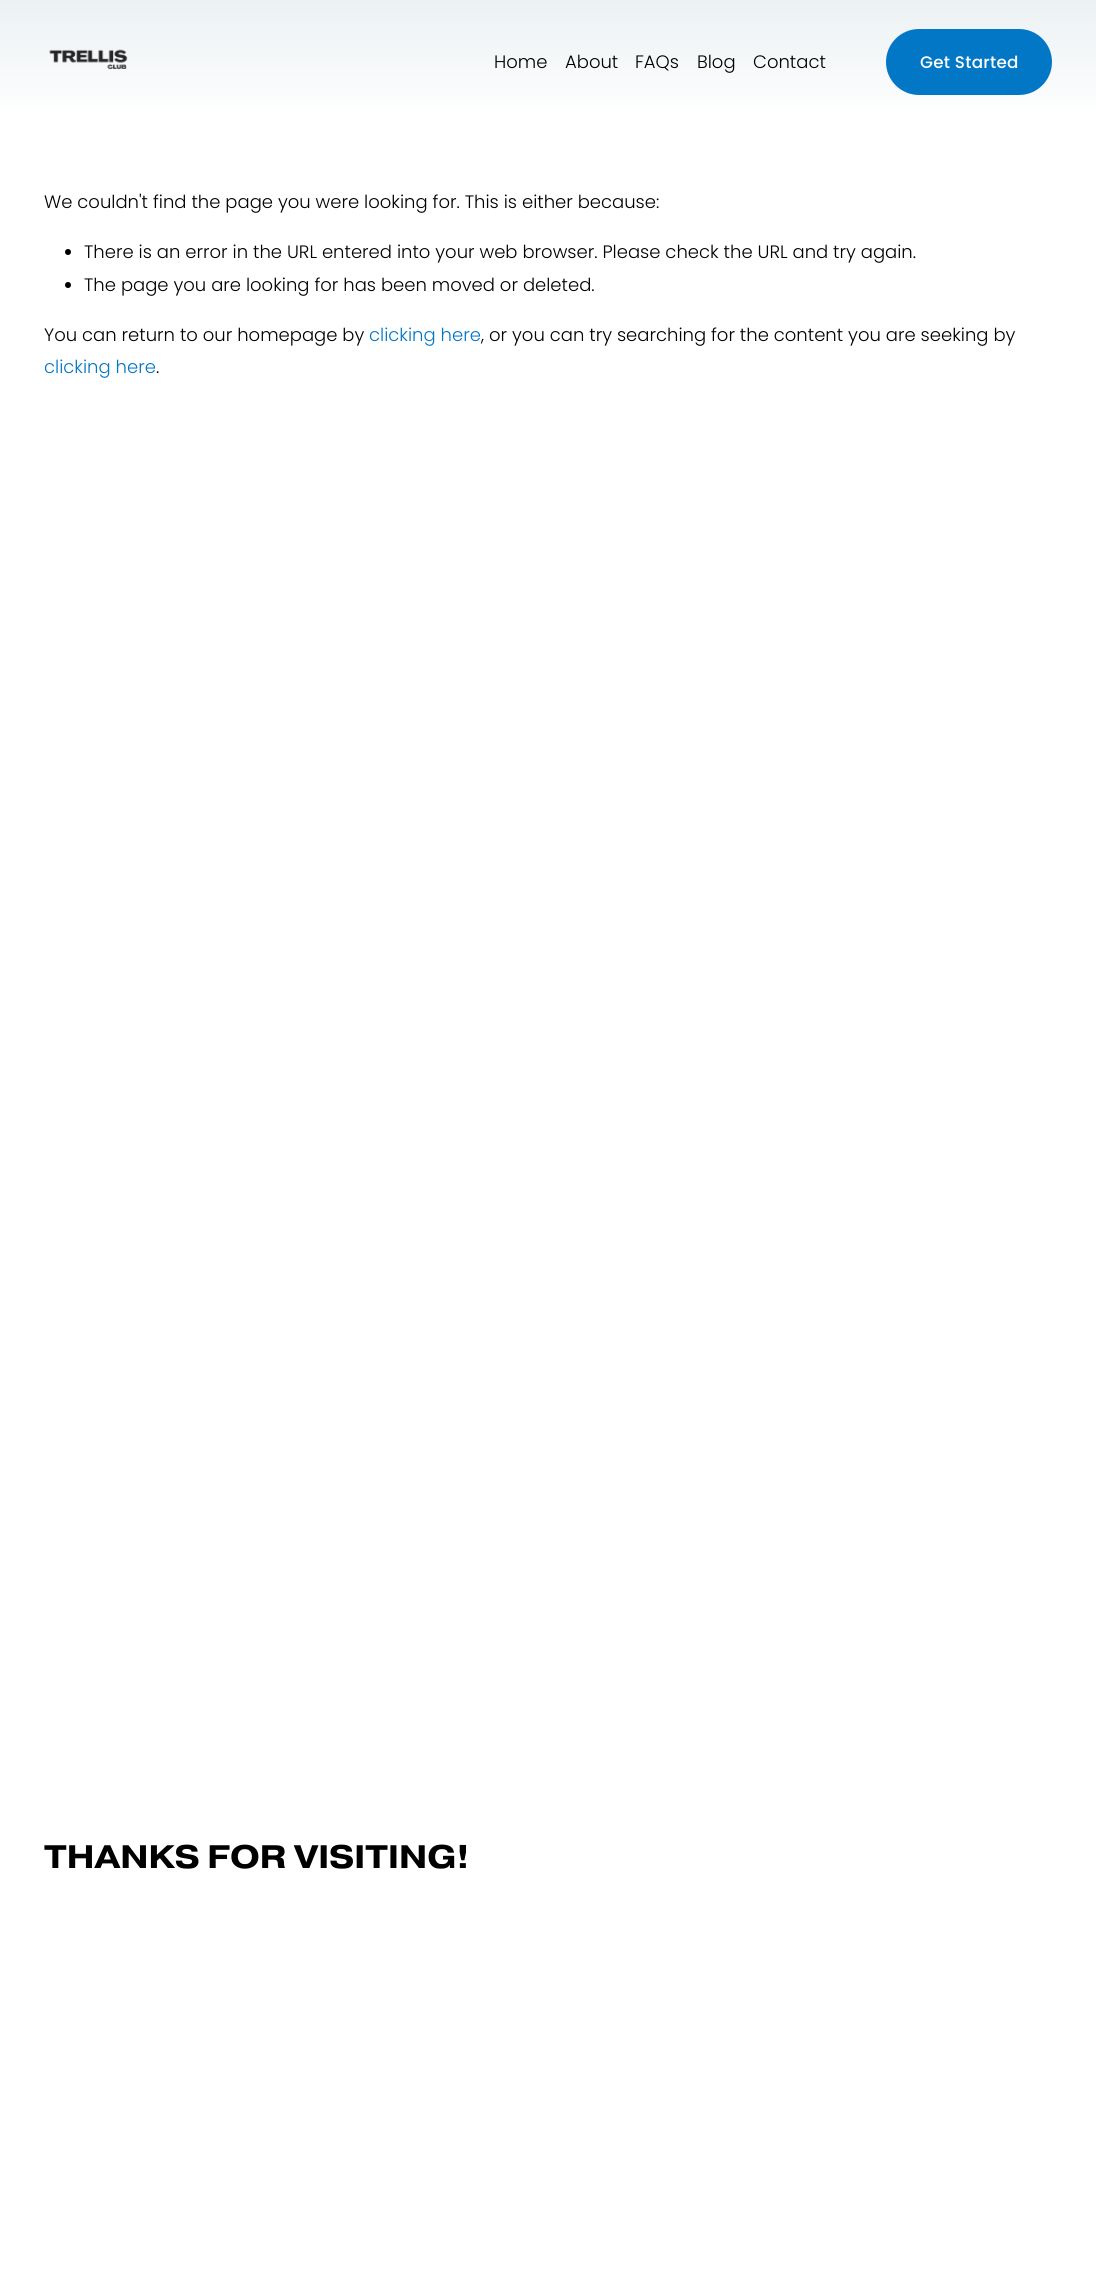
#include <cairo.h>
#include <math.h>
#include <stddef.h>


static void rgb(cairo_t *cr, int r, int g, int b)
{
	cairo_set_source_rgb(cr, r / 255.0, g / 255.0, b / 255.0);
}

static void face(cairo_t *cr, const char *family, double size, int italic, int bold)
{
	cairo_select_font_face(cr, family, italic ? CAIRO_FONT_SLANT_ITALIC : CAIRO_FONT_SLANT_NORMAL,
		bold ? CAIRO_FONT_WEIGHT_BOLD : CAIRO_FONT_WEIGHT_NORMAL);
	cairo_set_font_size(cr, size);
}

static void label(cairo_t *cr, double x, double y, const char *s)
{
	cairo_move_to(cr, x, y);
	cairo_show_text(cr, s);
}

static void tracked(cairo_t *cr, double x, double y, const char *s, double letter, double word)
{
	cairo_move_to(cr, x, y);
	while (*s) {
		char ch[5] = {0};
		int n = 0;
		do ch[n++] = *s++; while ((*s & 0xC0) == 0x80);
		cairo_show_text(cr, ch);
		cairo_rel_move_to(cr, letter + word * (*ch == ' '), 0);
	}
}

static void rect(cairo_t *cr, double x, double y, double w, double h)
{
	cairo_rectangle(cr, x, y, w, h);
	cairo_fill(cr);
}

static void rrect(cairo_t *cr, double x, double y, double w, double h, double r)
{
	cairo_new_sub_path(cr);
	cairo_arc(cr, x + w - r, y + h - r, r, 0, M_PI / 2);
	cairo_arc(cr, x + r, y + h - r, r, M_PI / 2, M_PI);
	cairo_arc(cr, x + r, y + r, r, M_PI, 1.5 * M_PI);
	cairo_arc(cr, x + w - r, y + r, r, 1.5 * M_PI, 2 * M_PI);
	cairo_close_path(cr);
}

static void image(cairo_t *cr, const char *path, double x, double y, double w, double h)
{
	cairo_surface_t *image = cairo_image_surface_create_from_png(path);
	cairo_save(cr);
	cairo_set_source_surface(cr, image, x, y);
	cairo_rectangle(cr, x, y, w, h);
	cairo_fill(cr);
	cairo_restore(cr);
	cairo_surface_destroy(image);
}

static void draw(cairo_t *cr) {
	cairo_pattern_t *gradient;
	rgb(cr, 255, 255, 255);
	cairo_paint(cr);
	gradient = cairo_pattern_create_linear(548, 0, 548, 124);
	cairo_pattern_add_color_stop_rgba(gradient, 0, 0.925, 0.945, 0.953, 1);
	cairo_pattern_add_color_stop_rgba(gradient, 1, 1, 1, 1, 1);
	cairo_set_source(cr, gradient);
	cairo_pattern_destroy(gradient);
	rect(cr, 0, 0, 1096, 108);
	image(cr, "image0.png", 49, 49, 79, 21);
	face(cr, "Poppins Light", 18, 0, 0);
	rgb(cr, 0, 0, 0);
	label(cr, 494, 68, "Home");
	label(cr, 565, 68, "About");
	label(cr, 635, 68, "FAQs");
	label(cr, 697, 68, "Blog");
	label(cr, 753, 68, "Contact");
	rgb(cr, 2, 119, 198);
	rrect(cr, 886, 29, 166, 66, 33);
	cairo_fill(cr);
	face(cr, "Poppins Medium", 16.75, 0, 0);
	rgb(cr, 255, 255, 255);
	tracked(cr, 920, 68, "Get Started", 0.25, 0);
	face(cr, "Poppins Light", 18, 0, 0);
	rgb(cr, 0, 0, 0);
	label(cr, 44, 208, "We couldn't find the page you were looking for. This is either because:");
	cairo_new_path(cr);
	cairo_arc(cr, 68, 252, 3, 0, 2 * M_PI);
	cairo_fill(cr);
	label(cr, 84, 258, "There is an error in the URL entered into your web browser. Please check the URL and try again.");
	cairo_new_path(cr);
	cairo_arc(cr, 68, 285, 3, 0, 2 * M_PI);
	cairo_fill(cr);
	label(cr, 84, 291, "The page you are looking for has been moved or deleted.");
	label(cr, 44, 341, "You can return to our homepage by");
	rgb(cr, 2, 119, 198);
	label(cr, 369, 341, "clicking here");
	rgb(cr, 0, 0, 0);
	label(cr, 481, 341, ", or you can try searching for the content you are seeking by");
	rgb(cr, 2, 119, 198);
	label(cr, 44, 373, "clicking here");
	rgb(cr, 0, 0, 0);
	label(cr, 156, 373, ".");
	face(cr, "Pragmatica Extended", 32.5, 0, 1);
	label(cr, 44, 1868, "THANKS FOR VISITING!");
}

int main(void) {
	cairo_surface_t *surface = cairo_image_surface_create(CAIRO_FORMAT_RGB24, 1096, 2275);
	cairo_t *cr = cairo_create(surface);
	cairo_font_options_t *options = cairo_font_options_create();
	cairo_font_options_set_hint_metrics(options, CAIRO_HINT_METRICS_OFF);
	cairo_font_options_set_hint_style(options, CAIRO_HINT_STYLE_NONE);
	cairo_set_font_options(cr, options);
	cairo_set_miter_limit(cr, 4);
	draw(cr);
	cairo_surface_write_to_png(surface, "render.png");
	cairo_font_options_destroy(options);
	cairo_destroy(cr);
	cairo_surface_destroy(surface);
	return 0;
}
